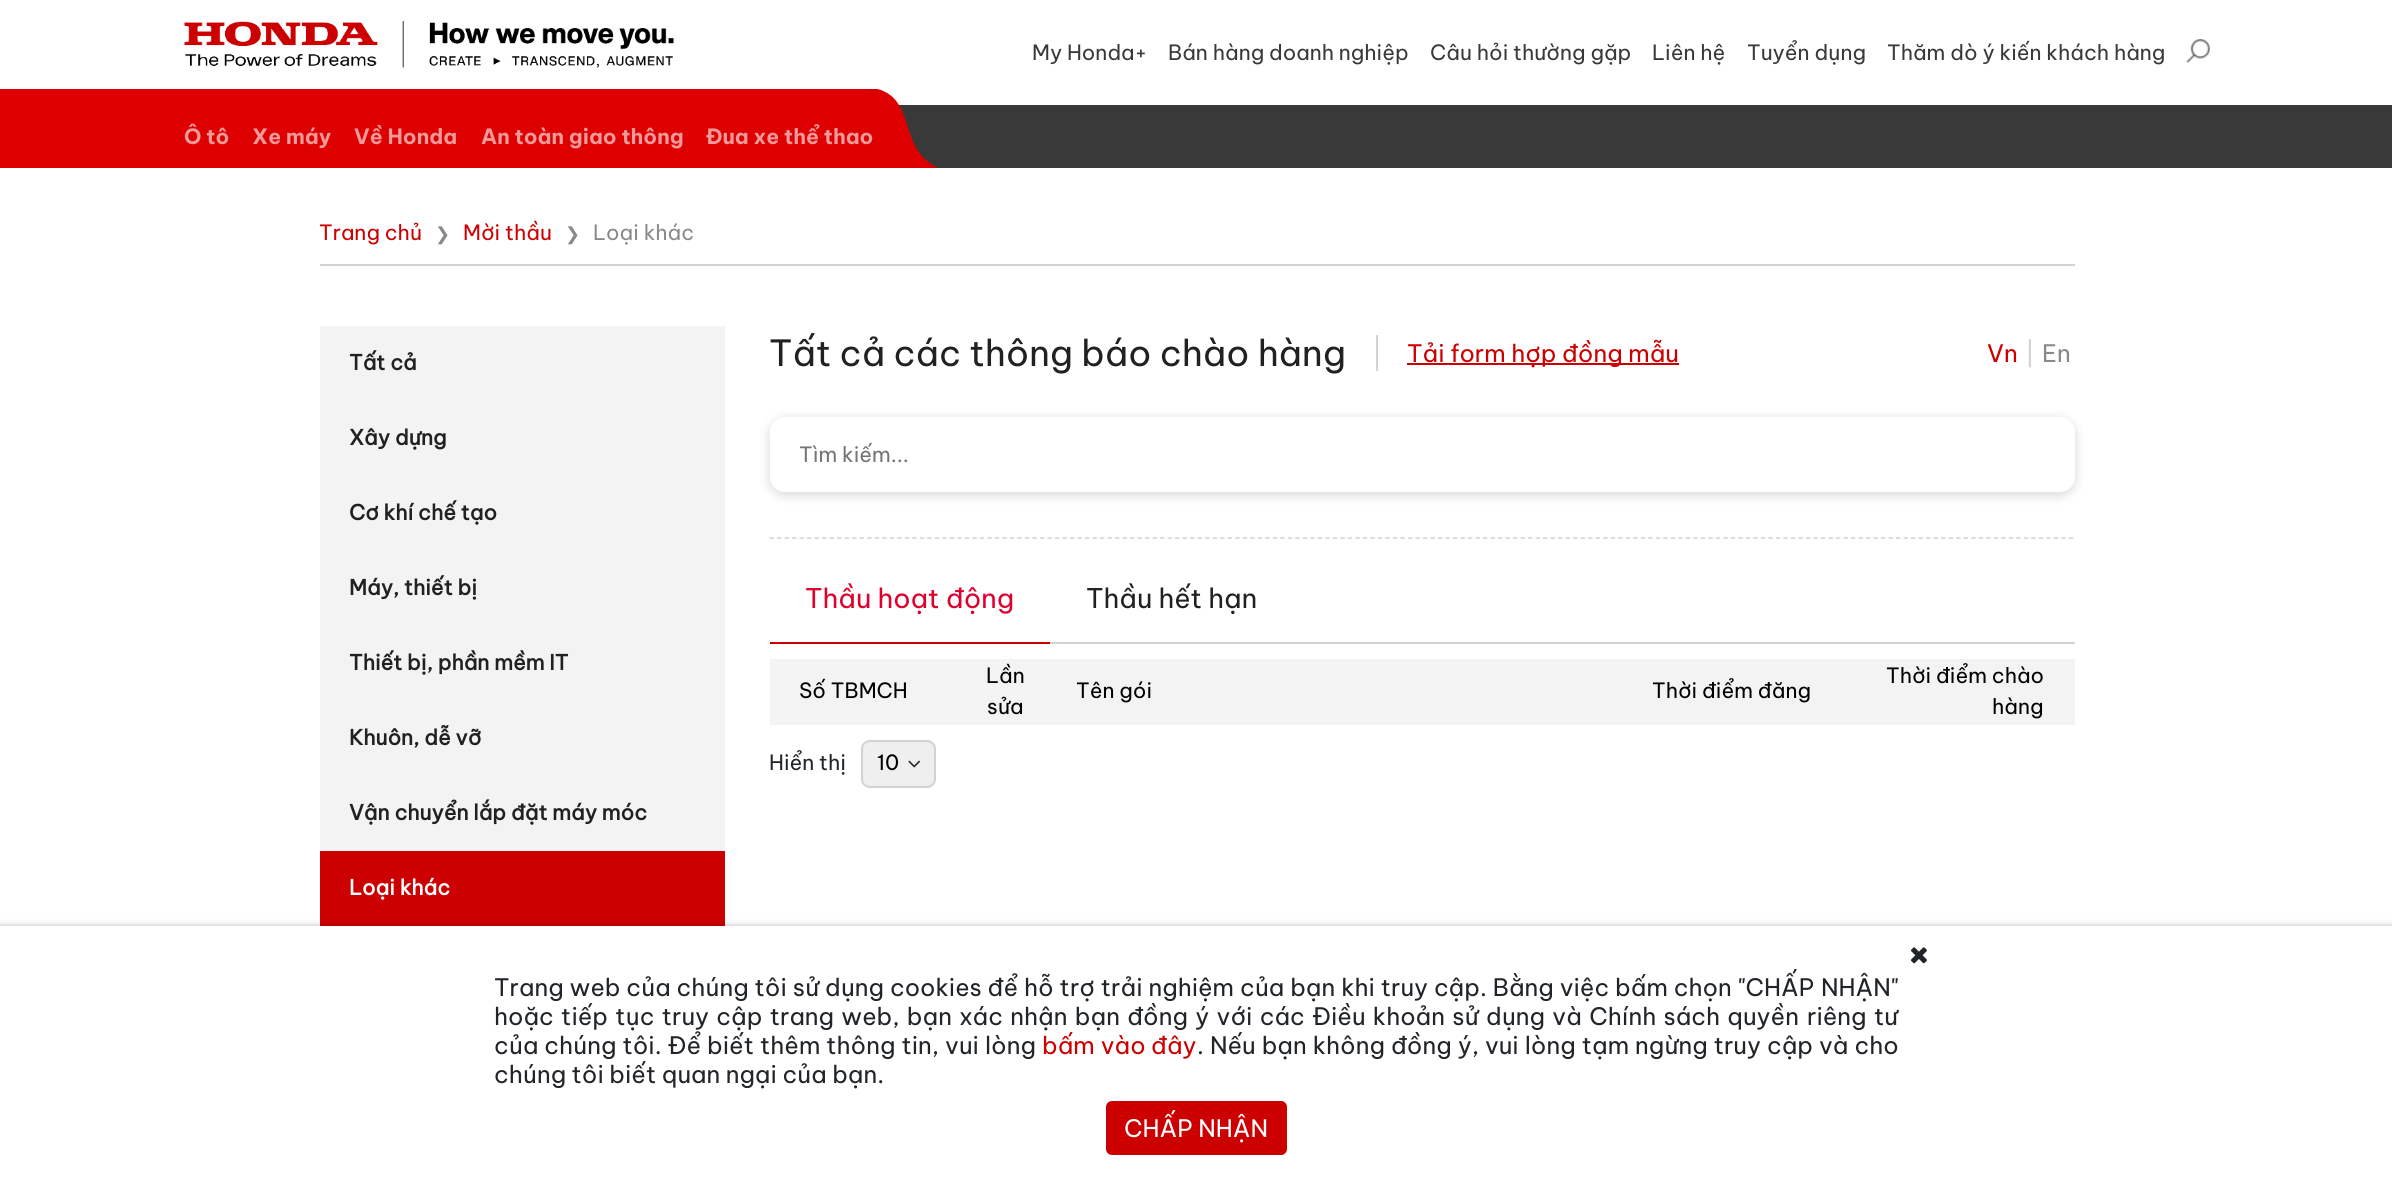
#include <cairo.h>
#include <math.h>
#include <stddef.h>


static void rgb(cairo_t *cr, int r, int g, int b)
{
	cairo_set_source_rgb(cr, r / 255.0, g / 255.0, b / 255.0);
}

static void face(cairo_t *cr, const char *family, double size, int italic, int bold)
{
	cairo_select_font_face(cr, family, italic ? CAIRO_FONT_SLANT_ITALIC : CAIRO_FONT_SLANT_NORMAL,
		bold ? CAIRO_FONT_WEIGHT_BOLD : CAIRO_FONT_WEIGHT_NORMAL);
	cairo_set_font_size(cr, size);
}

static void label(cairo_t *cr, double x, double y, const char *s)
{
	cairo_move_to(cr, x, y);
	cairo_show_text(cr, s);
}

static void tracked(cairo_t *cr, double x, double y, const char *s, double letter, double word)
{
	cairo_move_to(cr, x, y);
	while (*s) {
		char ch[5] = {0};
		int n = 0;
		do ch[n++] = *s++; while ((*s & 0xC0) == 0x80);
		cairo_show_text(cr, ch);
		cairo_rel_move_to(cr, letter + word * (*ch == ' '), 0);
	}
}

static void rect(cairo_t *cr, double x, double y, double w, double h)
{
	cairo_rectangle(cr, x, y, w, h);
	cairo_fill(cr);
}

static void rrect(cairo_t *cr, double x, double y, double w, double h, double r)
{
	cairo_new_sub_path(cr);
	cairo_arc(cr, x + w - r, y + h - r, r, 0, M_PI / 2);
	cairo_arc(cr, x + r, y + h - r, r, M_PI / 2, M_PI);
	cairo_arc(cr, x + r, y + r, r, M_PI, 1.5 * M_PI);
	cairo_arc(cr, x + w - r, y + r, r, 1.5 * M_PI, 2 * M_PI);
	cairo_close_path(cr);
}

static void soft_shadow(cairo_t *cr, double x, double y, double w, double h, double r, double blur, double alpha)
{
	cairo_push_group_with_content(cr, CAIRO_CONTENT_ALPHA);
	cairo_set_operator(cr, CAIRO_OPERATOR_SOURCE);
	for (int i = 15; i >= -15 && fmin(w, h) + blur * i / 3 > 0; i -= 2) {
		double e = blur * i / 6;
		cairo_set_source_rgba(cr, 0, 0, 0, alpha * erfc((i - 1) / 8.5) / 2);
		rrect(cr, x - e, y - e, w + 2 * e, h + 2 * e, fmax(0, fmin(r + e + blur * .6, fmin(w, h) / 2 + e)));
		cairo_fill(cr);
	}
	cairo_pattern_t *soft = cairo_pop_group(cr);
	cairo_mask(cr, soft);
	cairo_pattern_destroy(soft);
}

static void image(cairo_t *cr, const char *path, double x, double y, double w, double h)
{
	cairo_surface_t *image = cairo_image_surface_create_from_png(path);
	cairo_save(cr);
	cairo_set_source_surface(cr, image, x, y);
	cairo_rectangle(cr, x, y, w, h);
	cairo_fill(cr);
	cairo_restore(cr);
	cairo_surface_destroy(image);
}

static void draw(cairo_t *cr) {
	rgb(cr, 255, 255, 255);
	cairo_paint(cr);
	image(cr, "image0.png", 184, 21, 490, 47);
	face(cr, "Be Vietnam Pro", 21, 0, 0);
	rgb(cr, 57, 57, 57);
	label(cr, 1032, 60, "My Honda+");
	label(cr, 1168, 60, "Bán hàng doanh nghiệp");
	label(cr, 1430, 60, "Câu hỏi thường gặp");
	label(cr, 1652, 60, "Liên hệ");
	label(cr, 1747, 60, "Tuyển dụng");
	label(cr, 1887, 60, "Thăm dò ý kiến khách hàng");
	image(cr, "image1.png", 2186, 39, 24, 24);
	rgb(cr, 222, 0, 0);
	rect(cr, 0, 89, 873, 79);
	face(cr, "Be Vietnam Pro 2", 21, 0, 1);
	rgb(cr, 242, 153, 153);
	label(cr, 184, 144, "Ô tô");
	label(cr, 252, 144, "Xe máy");
	label(cr, 354, 144, "Về Honda");
	label(cr, 481, 144, "An toàn giao thông");
	label(cr, 706, 144, "Đua xe thể thao");
	rgb(cr, 57, 57, 57);
	rect(cr, 898, 105, 1494, 63);
	cairo_save(cr);
	cairo_rectangle(cr, 873, 89, 65, 79);
	cairo_clip(cr);
	rgb(cr, 222, 0, 0);
	cairo_new_path(cr);
	cairo_move_to(cr, 873, 88);
	cairo_line_to(cr, 873, 168);
	cairo_line_to(cr, 938, 168);
	cairo_curve_to(cr, 896, 148, 918, 96, 873, 88);
	cairo_close_path(cr);
	cairo_fill(cr);
	cairo_restore(cr);
	rgb(cr, 210, 210, 210);
	rect(cr, 320, 264, 1755, 2);
	face(cr, "Be Vietnam Pro", 21, 0, 0);
	rgb(cr, 204, 0, 0);
	label(cr, 319, 240, "Trang chủ");
	face(cr, "DejaVu Sans", 18, 0, 0);
	rgb(cr, 137, 137, 137);
	label(cr, 435, 240, "❯");
	face(cr, "Be Vietnam Pro", 21, 0, 0);
	rgb(cr, 204, 0, 0);
	label(cr, 463, 240, "Mời thầu");
	face(cr, "DejaVu Sans", 18, 0, 0);
	rgb(cr, 137, 137, 137);
	label(cr, 565, 240, "❯");
	face(cr, "Be Vietnam Pro", 21, 0, 0);
	label(cr, 593, 240, "Loại khác");
	rgb(cr, 243, 243, 243);
	rect(cr, 320, 326, 405, 525);
	face(cr, "Be Vietnam Pro", 21, 0, 1);
	rgb(cr, 33, 33, 33);
	label(cr, 349, 370, "Tất cả");
	label(cr, 349, 445, "Xây dựng");
	label(cr, 349, 520, "Cơ khí chế tạo");
	label(cr, 349, 595, "Máy, thiết bị");
	label(cr, 349, 670, "Thiết bị, phần mềm IT");
	label(cr, 349, 745, "Khuôn, dễ vỡ");
	label(cr, 349, 820, "Vận chuyển lắp đặt máy móc");
	rgb(cr, 204, 0, 0);
	rect(cr, 320, 851, 405, 75);
	rgb(cr, 255, 255, 255);
	label(cr, 349, 895, "Loại khác");
	face(cr, "Be Vietnam Pro", 36, 0, 0);
	rgb(cr, 33, 33, 33);
	label(cr, 769, 366, "Tất cả các thông báo chào hàng");
	rgb(cr, 210, 210, 210);
	rect(cr, 1376, 335, 2, 36);
	rgb(cr, 204, 0, 0);
	rect(cr, 1407, 363, 272, 2);
	face(cr, "Be Vietnam Pro", 24, 0, 0);
	label(cr, 1407, 362, "Tải form hợp đồng mẫu");
	label(cr, 1987, 362, "Vn");
	rgb(cr, 210, 210, 210);
	label(cr, 2025, 362, "|");
	rgb(cr, 137, 137, 137);
	label(cr, 2042, 362, "En");
	rgb(cr, 0, 0, 0);
	soft_shadow(cr, 770, 420, 1305, 75, 15, 6, 0.16);
	rgb(cr, 255, 255, 255);
	rrect(cr, 770, 417, 1305, 75, 15);
	cairo_fill(cr);
	cairo_save(cr);
	cairo_rectangle(cr, 800, 441, 1245, 27);
	cairo_clip(cr);
	face(cr, "Be Vietnam Pro", 21, 0, 0);
	rgb(cr, 117, 117, 117);
	label(cr, 799, 462, "Tìm kiếm...");
	cairo_restore(cr);
	cairo_new_path(cr);
	cairo_move_to(cr, 769.5, 538);
	cairo_line_to(cr, 2074.5, 538);
	rgb(cr, 210, 210, 210);
	cairo_set_line_width(cr, 1.5);
	cairo_set_dash(cr, (double[]){4.5, 3.01}, 2, 0);
	cairo_stroke(cr);
	rgb(cr, 204, 0, 0);
	rect(cr, 770, 642, 280, 2);
	face(cr, "Be Vietnam Pro", 27, 0, 0);
	rgb(cr, 223, 0, 44);
	label(cr, 805, 608, "Thầu hoạt động");
	rgb(cr, 33, 33, 33);
	label(cr, 1086, 608, "Thầu hết hạn");
	rgb(cr, 210, 210, 210);
	rect(cr, 1050, 642, 1025, 2);
	rgb(cr, 243, 243, 243);
	rect(cr, 770, 659, 1305, 66);
	face(cr, "Be Vietnam Pro", 21, 0, 0);
	rgb(cr, 0, 0, 0);
	label(cr, 799, 698, "Số TBMCH");
	label(cr, 986, 683, "Lần");
	label(cr, 987, 714, "sửa");
	label(cr, 1076, 698, "Tên gói");
	label(cr, 1652, 698, "Thời điểm đăng");
	label(cr, 1886, 683, "Thời điểm chào");
	label(cr, 1992, 714, "hàng");
	rgb(cr, 33, 37, 41);
	label(cr, 769, 770, "Hiển thị");
	rgb(cr, 239, 239, 239);
	rrect(cr, 862, 741, 73, 46, 8);
	cairo_fill_preserve(cr);
	rgb(cr, 210, 210, 210);
	cairo_set_line_width(cr, 2);
	cairo_set_dash(cr, NULL, 0, 0);
	cairo_stroke(cr);
	rgb(cr, 0, 0, 0);
	label(cr, 877, 770, "10");
	image(cr, "image2.png", 908, 760, 13, 8);
	rgb(cr, 0, 0, 0);
	soft_shadow(cr, 0, 930, 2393, 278, 0, 4.5, 0.8);
	rgb(cr, 255, 255, 255);
	rect(cr, 0, 926, 2392, 277);
	image(cr, "image3.png", 1911, 947, 16, 17);
	face(cr, "Be Vietnam Pro", 24, 0, 0);
	rgb(cr, 33, 37, 41);
	tracked(cr, 494, 996, "Trang web của chúng tôi sử dụng cookies để hỗ trợ trải nghiệm của bạn khi truy cập. Bằng việc bấm chọn \"CHẤP", 0, 0.4);
	label(cr, 1821, 996, "NHẬN\"");
	tracked(cr, 494, 1025, "hoặc tiếp tục truy cập trang web, bạn xác nhận bạn đồng ý với các Điều khoản sử dụng và Chính sách quyền", 0, 1.8);
	tracked(cr, 1807, 1025, "riêng tư", 0, 2);
	tracked(cr, 494, 1054, "của chúng tôi. Để biết thêm thông tin, vui lòng", 0, 0.5);
	rgb(cr, 204, 0, 0);
	tracked(cr, 1042, 1054, "bấm vào", 0, 0.5);
	label(cr, 1151, 1054, "đây");
	rgb(cr, 33, 37, 41);
	tracked(cr, 1197, 1054, ". Nếu bạn không đồng ý, vui lòng tạm ngừng truy cập và cho", 0, 0.5);
	label(cr, 494, 1083, "chúng tôi biết quan ngại của bạn.");
	rgb(cr, 204, 0, 0);
	rrect(cr, 1106, 1101, 181, 54, 6);
	cairo_fill(cr);
	rgb(cr, 255, 255, 255);
	label(cr, 1124, 1137, "CHẤP NHẬN");
}

int main(void) {
	cairo_surface_t *surface = cairo_image_surface_create(CAIRO_FORMAT_RGB24, 2392, 1203);
	cairo_t *cr = cairo_create(surface);
	cairo_font_options_t *options = cairo_font_options_create();
	cairo_font_options_set_hint_metrics(options, CAIRO_HINT_METRICS_OFF);
	cairo_font_options_set_hint_style(options, CAIRO_HINT_STYLE_NONE);
	cairo_set_font_options(cr, options);
	cairo_set_miter_limit(cr, 4);
	draw(cr);
	cairo_surface_write_to_png(surface, "render.png");
	cairo_font_options_destroy(options);
	cairo_destroy(cr);
	cairo_surface_destroy(surface);
	return 0;
}
